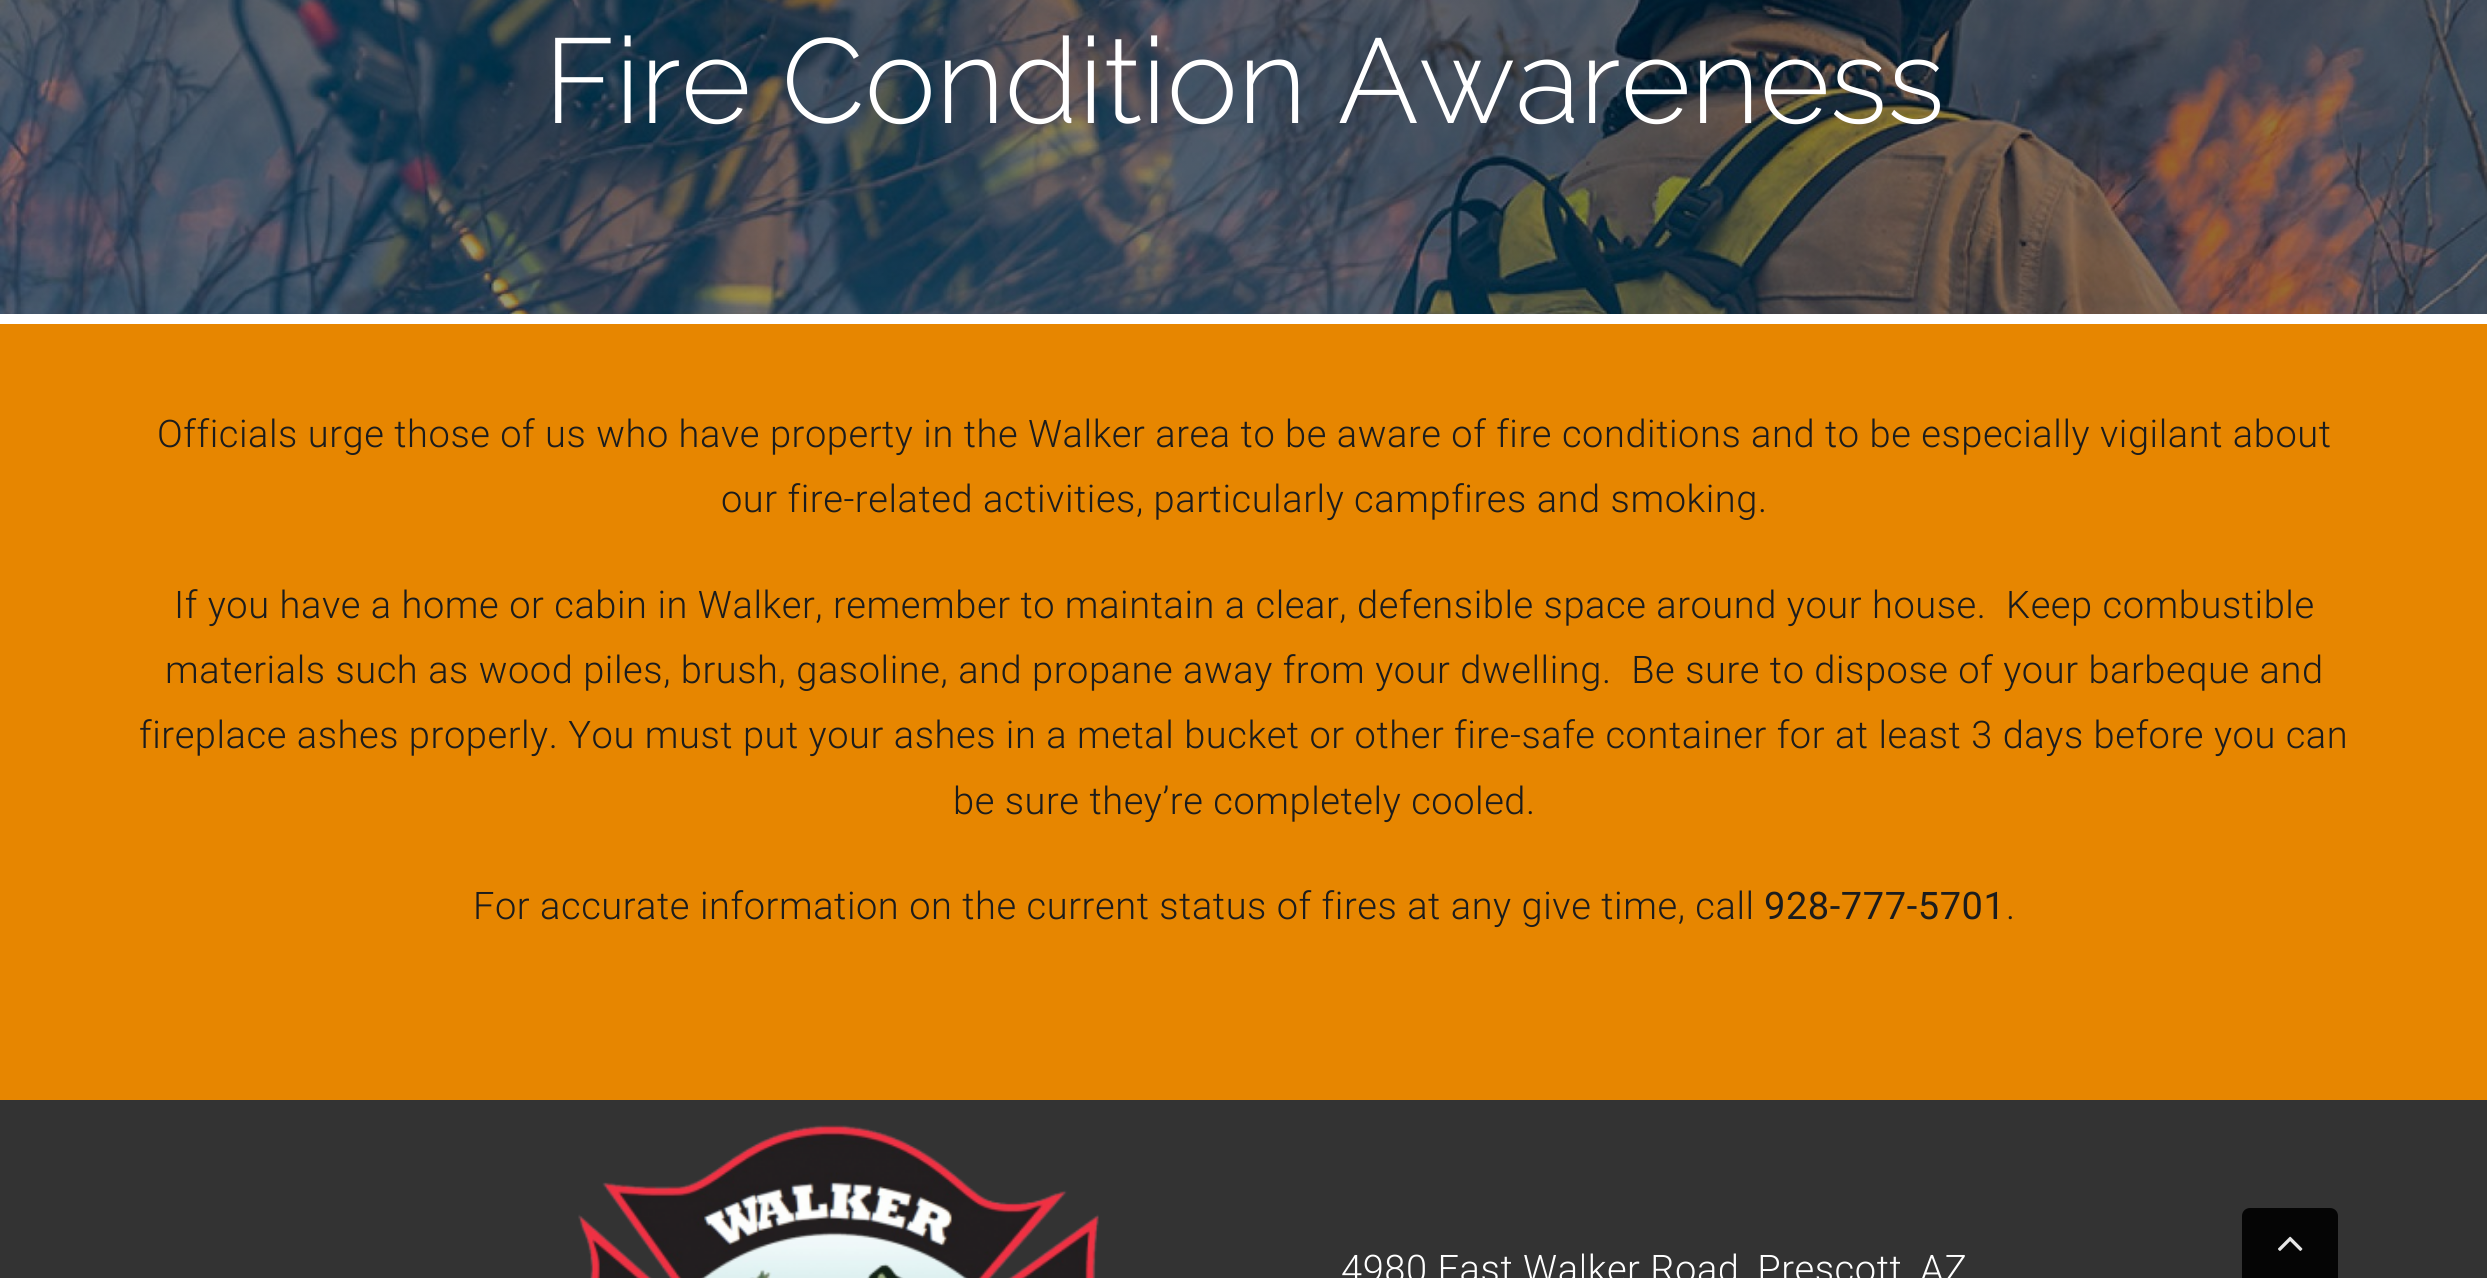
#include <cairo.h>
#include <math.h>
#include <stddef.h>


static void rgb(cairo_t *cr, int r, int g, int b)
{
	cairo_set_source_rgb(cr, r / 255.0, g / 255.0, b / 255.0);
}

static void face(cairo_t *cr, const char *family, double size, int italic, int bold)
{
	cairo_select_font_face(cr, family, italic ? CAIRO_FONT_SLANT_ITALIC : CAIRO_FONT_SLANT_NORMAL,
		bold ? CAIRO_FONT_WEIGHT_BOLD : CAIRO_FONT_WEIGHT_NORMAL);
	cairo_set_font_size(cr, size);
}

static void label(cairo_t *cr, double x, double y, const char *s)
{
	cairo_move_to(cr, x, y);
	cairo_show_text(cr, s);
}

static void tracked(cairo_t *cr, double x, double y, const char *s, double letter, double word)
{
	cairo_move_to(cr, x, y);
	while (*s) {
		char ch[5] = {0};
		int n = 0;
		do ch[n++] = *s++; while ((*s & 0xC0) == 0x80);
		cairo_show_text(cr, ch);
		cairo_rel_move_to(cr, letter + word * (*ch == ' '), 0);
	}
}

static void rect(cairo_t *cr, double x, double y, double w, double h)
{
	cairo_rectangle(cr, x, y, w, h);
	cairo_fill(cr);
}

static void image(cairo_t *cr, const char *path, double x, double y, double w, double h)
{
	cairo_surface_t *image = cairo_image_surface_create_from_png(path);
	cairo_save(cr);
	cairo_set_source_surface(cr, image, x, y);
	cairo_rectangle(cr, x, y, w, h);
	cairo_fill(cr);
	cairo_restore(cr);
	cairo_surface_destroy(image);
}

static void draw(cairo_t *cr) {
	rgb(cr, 255, 255, 255);
	cairo_paint(cr);
	image(cr, "image0.png", 0, 0, 2487, 314);
	face(cr, "Raleway Light", 120, 0, 0);
	rgb(cr, 255, 255, 255);
	label(cr, 544, 123, "Fire Condition Awareness");
	rgb(cr, 231, 134, 0);
	rect(cr, 0, 324, 2487, 776);
	face(cr, "Roboto Light", 38, 0, 0);
	rgb(cr, 28, 28, 28);
	tracked(cr, 157, 447, "Officials urge those of us who have property in the Walker area to be aware of fire conditions and to be especially vigilant about", 0.57, 0);
	tracked(cr, 721, 512, "our fire-related activities, particularly campfires and smoking.", 0.57, 0);
	tracked(cr, 174, 618, "If you have a home or cabin in Walker, remember to maintain a clear, defensible space around your house.  Keep combustible", 0.57, 0);
	tracked(cr, 165, 683, "materials such as wood piles, brush, gasoline, and propane away from your dwelling.  Be sure to dispose of your barbeque and", 0.57, 0);
	tracked(cr, 139, 748, "fireplace ashes properly. You must put your ashes in a metal bucket or other fire-safe container for at least 3 days before you can", 0.57, 0);
	tracked(cr, 953, 814, "be sure they’re completely cooled.", 0.57, 0);
	tracked(cr, 473, 919, "For accurate information on the current status of fires at any give time, call", 0.57, 0);
	face(cr, "Roboto", 38, 0, 0);
	tracked(cr, 1764, 919, "928-777-5701", 0.57, 0);
	face(cr, "Roboto Light", 38, 0, 0);
	tracked(cr, 2006, 919, ".", 0.57, 0);
	rgb(cr, 51, 51, 51);
	rect(cr, 0, 1100, 2487, 178);
	image(cr, "image1.png", 578, 1125, 521, 153);
	rgb(cr, 255, 255, 255);
	tracked(cr, 1341, 1282, "4980 East Walker Road, Prescott, AZ", 0.57, 0);
	rgb(cr, 5, 5, 5);
	cairo_new_path(cr);
	cairo_move_to(cr, 2250, 1208);
	cairo_line_to(cr, 2330, 1208);
	cairo_curve_to(cr, 2334.5, 1208, 2338, 1211.5, 2338, 1216);
	cairo_line_to(cr, 2338, 1278);
	cairo_line_to(cr, 2242, 1278);
	cairo_line_to(cr, 2242, 1216);
	cairo_curve_to(cr, 2242, 1211.5, 2245.5, 1208, 2250, 1208);
	cairo_close_path(cr);
	cairo_fill(cr);
	image(cr, "image2.png", 2278, 1236, 25, 15);
}

int main(void) {
	cairo_surface_t *surface = cairo_image_surface_create(CAIRO_FORMAT_RGB24, 2487, 1278);
	cairo_t *cr = cairo_create(surface);
	cairo_font_options_t *options = cairo_font_options_create();
	cairo_font_options_set_hint_metrics(options, CAIRO_HINT_METRICS_OFF);
	cairo_font_options_set_hint_style(options, CAIRO_HINT_STYLE_NONE);
	cairo_set_font_options(cr, options);
	cairo_set_miter_limit(cr, 4);
	draw(cr);
	cairo_surface_write_to_png(surface, "render.png");
	cairo_font_options_destroy(options);
	cairo_destroy(cr);
	cairo_surface_destroy(surface);
	return 0;
}
